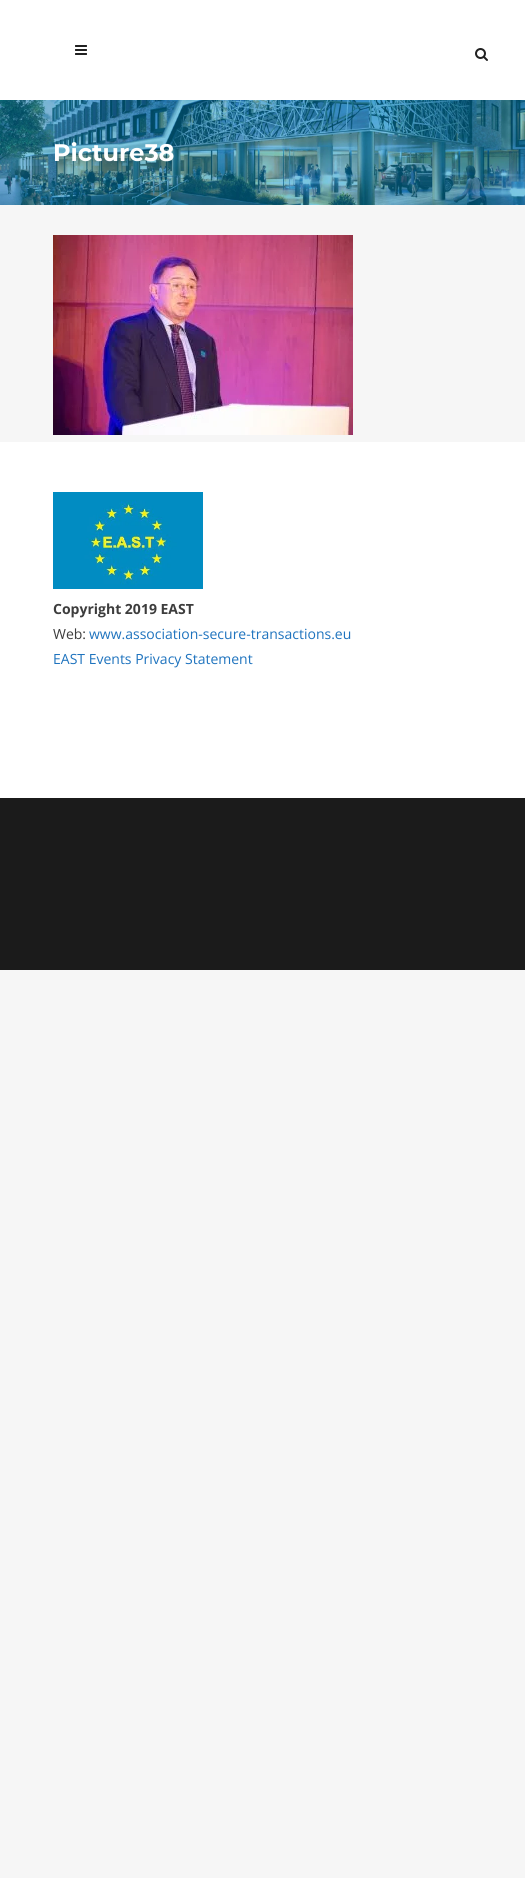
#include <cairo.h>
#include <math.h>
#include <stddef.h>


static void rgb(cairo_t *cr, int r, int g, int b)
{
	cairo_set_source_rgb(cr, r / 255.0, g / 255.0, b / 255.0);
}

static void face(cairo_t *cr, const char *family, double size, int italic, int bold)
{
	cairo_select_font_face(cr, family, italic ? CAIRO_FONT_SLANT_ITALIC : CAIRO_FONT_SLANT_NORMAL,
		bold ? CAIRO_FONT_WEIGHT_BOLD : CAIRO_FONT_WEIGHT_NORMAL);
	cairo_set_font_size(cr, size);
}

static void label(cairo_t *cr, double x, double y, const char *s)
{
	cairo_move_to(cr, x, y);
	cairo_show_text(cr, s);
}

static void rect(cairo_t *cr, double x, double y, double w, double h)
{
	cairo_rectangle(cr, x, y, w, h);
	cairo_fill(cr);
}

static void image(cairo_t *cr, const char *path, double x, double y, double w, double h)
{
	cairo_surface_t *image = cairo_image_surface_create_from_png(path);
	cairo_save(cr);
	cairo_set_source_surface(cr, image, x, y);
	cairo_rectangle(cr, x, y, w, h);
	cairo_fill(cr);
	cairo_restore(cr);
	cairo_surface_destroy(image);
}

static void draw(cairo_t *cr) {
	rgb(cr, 246, 246, 246);
	cairo_paint(cr);
	rgb(cr, 255, 255, 255);
	rect(cr, 0, 0, 525, 100);
	image(cr, "image0.png", 75, 45, 12, 10);
	image(cr, "image1.png", 475, 48, 13, 13);
	image(cr, "image2.png", 0, 100, 525, 105);
	face(cr, "Montserrat", 24, 0, 1);
	label(cr, 53, 161, "Picture38");
	image(cr, "image3.png", 53, 235, 300, 200);
	rect(cr, 0, 442, 525, 356);
	image(cr, "image4.png", 53, 492, 150, 97);
	face(cr, "Open Sans", 14, 0, 1);
	rgb(cr, 61, 61, 61);
	label(cr, 53, 614, "Copyright 2019 EAST");
	face(cr, "Open Sans", 14, 0, 0);
	label(cr, 53, 639, "Web:");
	rgb(cr, 30, 115, 190);
	label(cr, 89, 639, "www.association-secure-transactions.eu");
	label(cr, 53, 664, "EAST Events Privacy Statement");
	rgb(cr, 27, 27, 27);
	rect(cr, 0, 798, 525, 172);
}

int main(void) {
	cairo_surface_t *surface = cairo_image_surface_create(CAIRO_FORMAT_RGB24, 525, 1878);
	cairo_t *cr = cairo_create(surface);
	cairo_font_options_t *options = cairo_font_options_create();
	cairo_font_options_set_hint_metrics(options, CAIRO_HINT_METRICS_OFF);
	cairo_font_options_set_hint_style(options, CAIRO_HINT_STYLE_NONE);
	cairo_set_font_options(cr, options);
	cairo_set_miter_limit(cr, 4);
	draw(cr);
	cairo_surface_write_to_png(surface, "render.png");
	cairo_font_options_destroy(options);
	cairo_destroy(cr);
	cairo_surface_destroy(surface);
	return 0;
}
